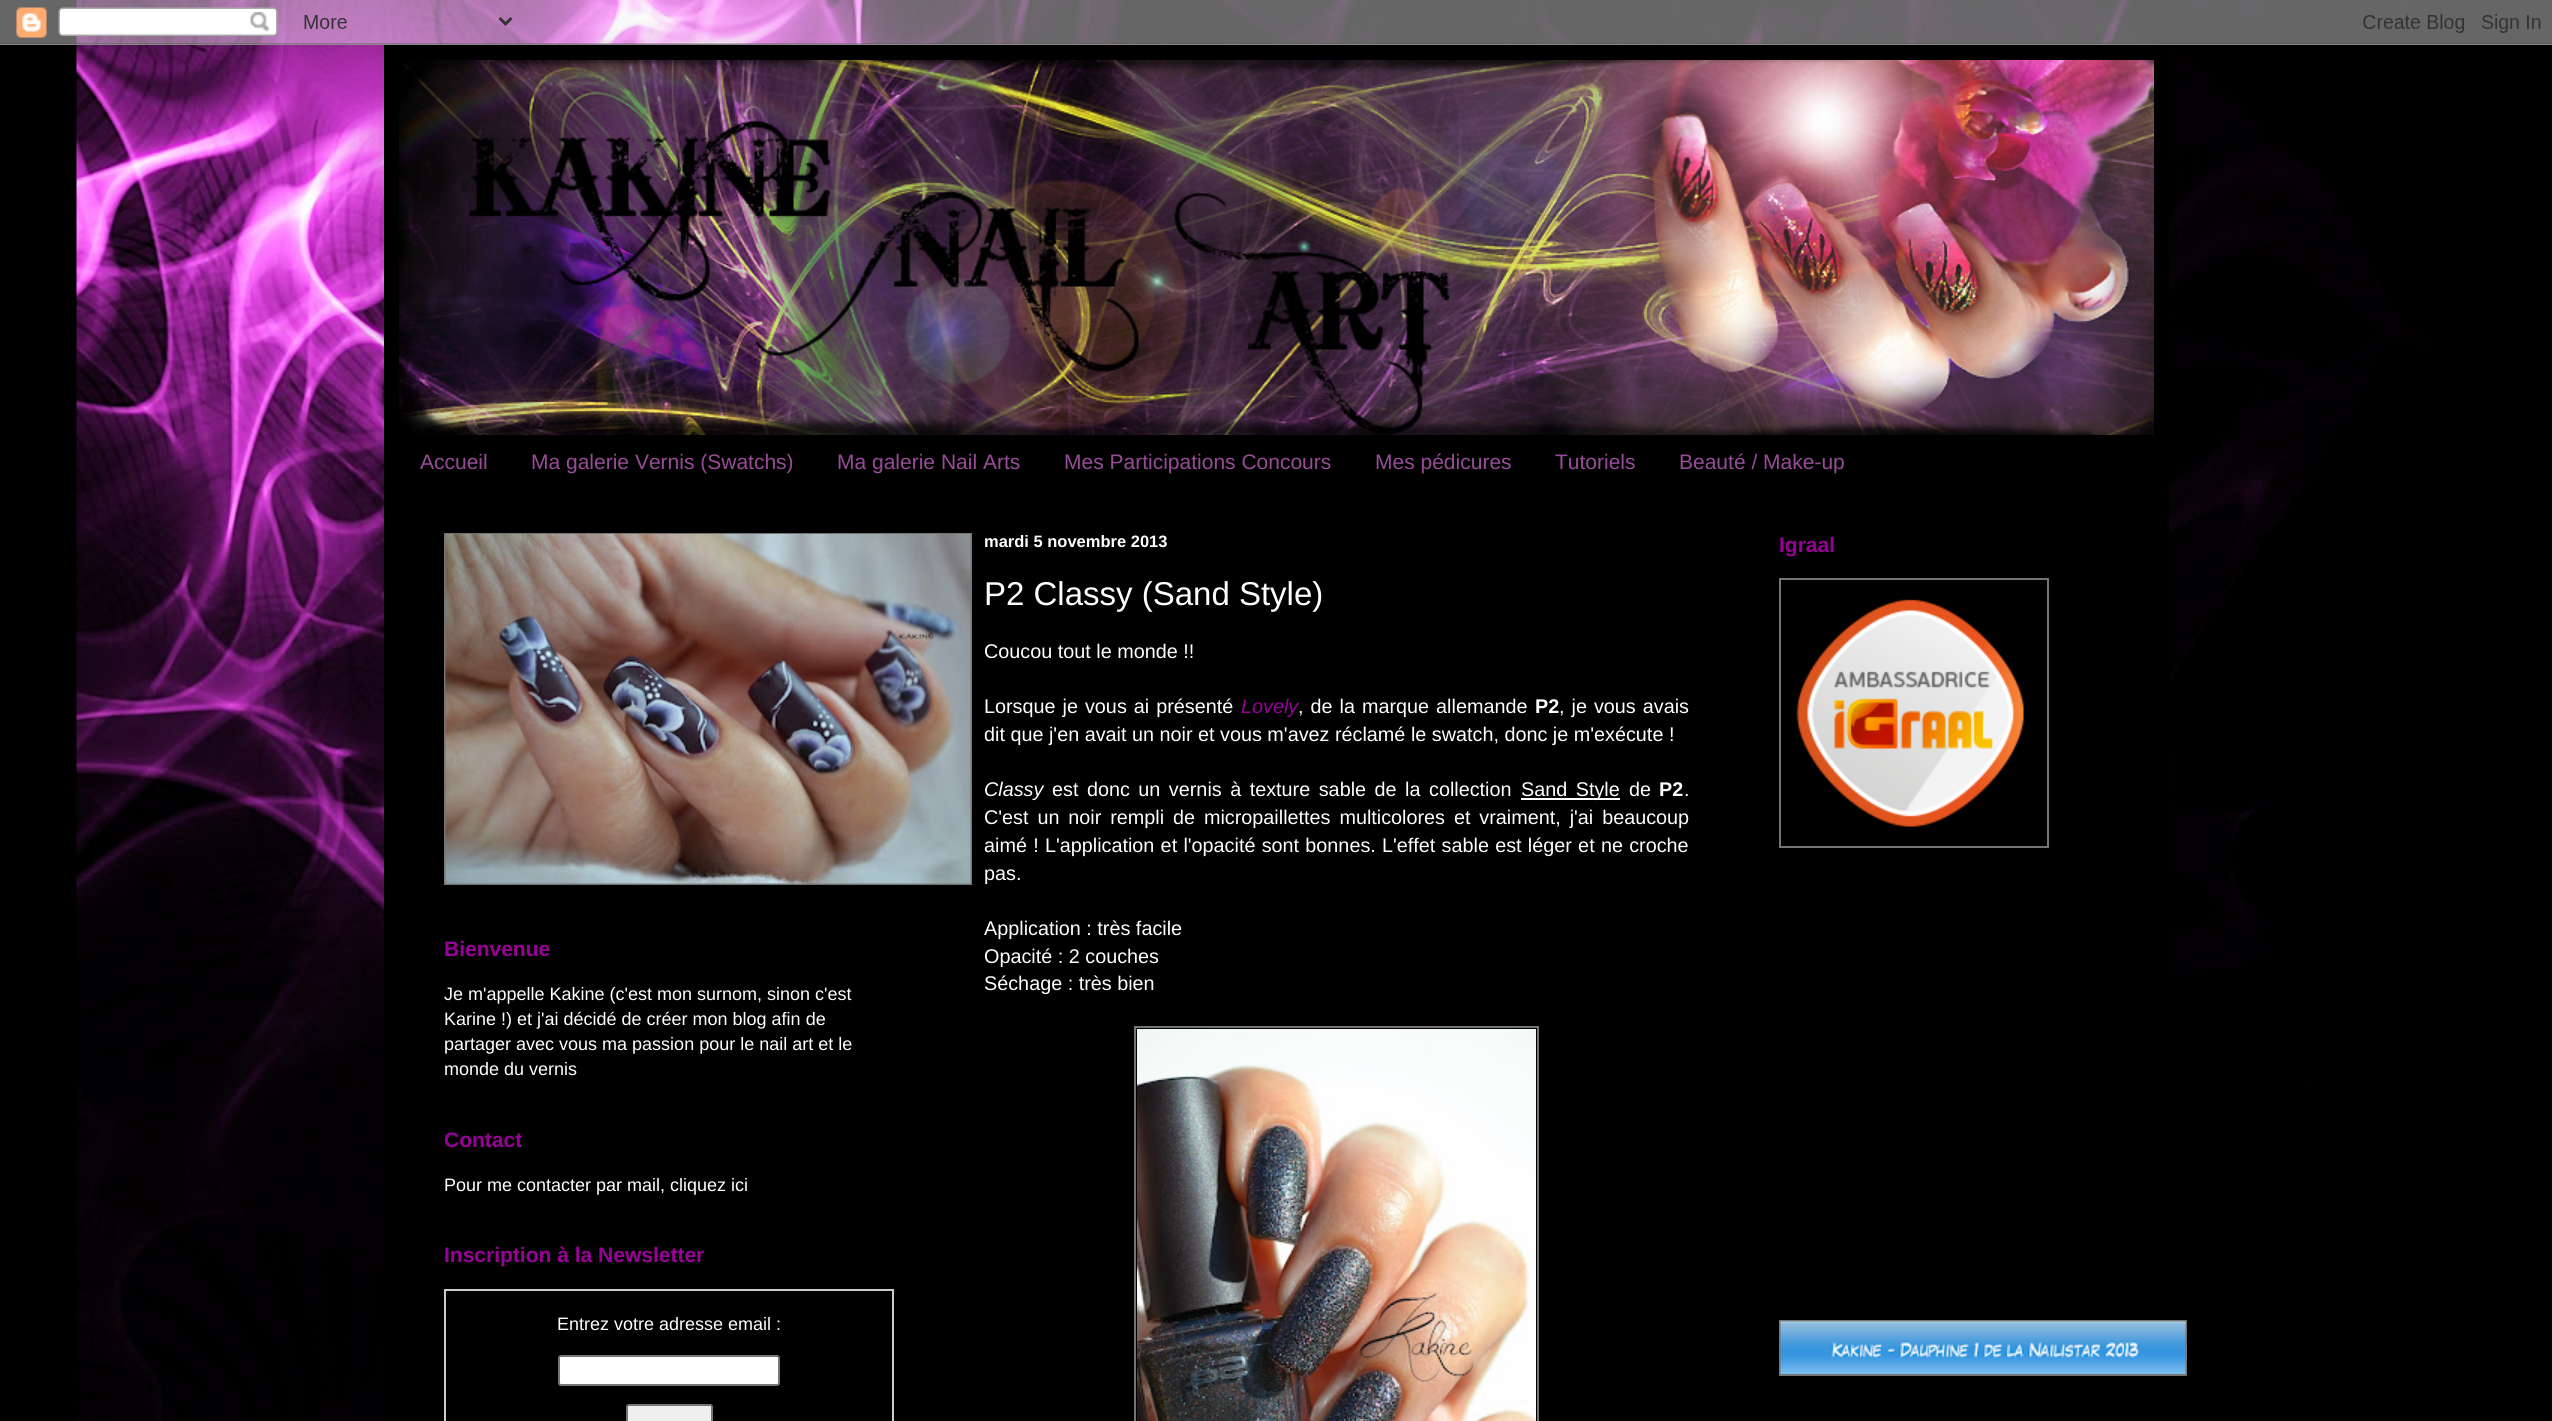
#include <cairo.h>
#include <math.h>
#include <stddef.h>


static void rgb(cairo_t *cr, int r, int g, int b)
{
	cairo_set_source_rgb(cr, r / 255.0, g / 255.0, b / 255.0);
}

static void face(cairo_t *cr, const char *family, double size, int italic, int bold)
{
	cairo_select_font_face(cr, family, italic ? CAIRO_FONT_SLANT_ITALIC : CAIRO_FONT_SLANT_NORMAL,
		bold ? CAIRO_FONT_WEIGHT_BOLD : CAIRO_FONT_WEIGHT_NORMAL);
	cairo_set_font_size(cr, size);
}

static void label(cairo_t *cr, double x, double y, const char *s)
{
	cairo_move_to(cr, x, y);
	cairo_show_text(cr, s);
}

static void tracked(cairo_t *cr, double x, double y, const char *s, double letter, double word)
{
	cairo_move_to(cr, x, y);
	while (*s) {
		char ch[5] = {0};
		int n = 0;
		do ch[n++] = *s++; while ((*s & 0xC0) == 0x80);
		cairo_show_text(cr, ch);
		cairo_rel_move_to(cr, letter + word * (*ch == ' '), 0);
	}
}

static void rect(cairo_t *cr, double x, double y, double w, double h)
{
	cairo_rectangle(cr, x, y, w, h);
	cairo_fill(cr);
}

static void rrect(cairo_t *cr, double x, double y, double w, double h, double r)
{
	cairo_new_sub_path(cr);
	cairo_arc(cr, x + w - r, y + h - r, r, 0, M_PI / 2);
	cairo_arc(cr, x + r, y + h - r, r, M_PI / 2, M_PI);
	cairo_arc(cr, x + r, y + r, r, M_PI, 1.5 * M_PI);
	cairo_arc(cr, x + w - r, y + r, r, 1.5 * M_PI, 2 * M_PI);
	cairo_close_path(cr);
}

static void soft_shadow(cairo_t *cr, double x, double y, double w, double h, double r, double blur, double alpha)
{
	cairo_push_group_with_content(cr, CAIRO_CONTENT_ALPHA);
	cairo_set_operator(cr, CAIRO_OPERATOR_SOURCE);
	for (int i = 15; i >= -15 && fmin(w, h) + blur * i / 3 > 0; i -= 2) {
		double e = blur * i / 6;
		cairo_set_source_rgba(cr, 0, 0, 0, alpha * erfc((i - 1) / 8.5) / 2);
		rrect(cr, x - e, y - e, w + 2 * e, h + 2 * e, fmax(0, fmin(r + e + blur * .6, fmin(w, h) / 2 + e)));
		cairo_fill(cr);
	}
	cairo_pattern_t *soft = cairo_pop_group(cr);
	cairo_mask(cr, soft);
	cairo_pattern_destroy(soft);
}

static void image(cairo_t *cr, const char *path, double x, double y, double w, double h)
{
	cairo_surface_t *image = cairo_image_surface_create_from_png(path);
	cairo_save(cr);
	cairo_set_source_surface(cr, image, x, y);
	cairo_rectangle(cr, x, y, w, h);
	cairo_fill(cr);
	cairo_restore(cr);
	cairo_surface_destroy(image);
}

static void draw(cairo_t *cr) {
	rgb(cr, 0, 0, 0);
	cairo_paint(cr);
	image(cr, "image0.png", 76, 0, 2356, 1421);
	soft_shadow(cr, 384, 45, 1785, 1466, 0, 30, 0.15);
	image(cr, "image1.png", 0, 0, 2552, 45);
	rgb(cr, 0, 0, 0);
	rect(cr, 384, 45, 1785, 1376);
	image(cr, "image2.png", 399, 60, 1755, 375);
	face(cr, "Liberation Sans", 21, 0, 0);
	rgb(cr, 152, 76, 152);
	label(cr, 420, 469, "Accueil");
	label(cr, 531, 469, "Ma galerie Vernis (Swatchs)");
	label(cr, 837, 469, "Ma galerie Nail Arts");
	label(cr, 1064, 469, "Mes Participations Concours");
	label(cr, 1375, 469, "Mes pédicures");
	label(cr, 1555, 469, "Tutoriels");
	label(cr, 1679, 469, "Beauté / Make-up");
	face(cr, "Liberation Sans", 16.5, 0, 1);
	rgb(cr, 255, 255, 255);
	label(cr, 984, 547, "mardi 5 novembre 2013");
	face(cr, "Liberation Sans", 33, 0, 0);
	label(cr, 984, 605, "P2 Classy (Sand Style)");
	face(cr, "Liberation Sans", 19.8, 0, 0);
	label(cr, 984, 658, "Coucou tout le monde !!");
	tracked(cr, 984, 713, "Lorsque je vous ai présenté", 0, 1.5);
	face(cr, "Liberation Sans", 19.8, 1, 0);
	rgb(cr, 152, 0, 152);
	label(cr, 1241, 713, "Lovely");
	face(cr, "Liberation Sans", 19.8, 0, 0);
	rgb(cr, 255, 255, 255);
	tracked(cr, 1298, 713, ", de la marque allemande", 0, 1.5);
	face(cr, "Liberation Sans", 19.8, 0, 1);
	label(cr, 1535, 713, "P2");
	face(cr, "Liberation Sans", 19.8, 0, 0);
	tracked(cr, 1559, 713, ", je vous avais", 0, 1.5);
	label(cr, 984, 741, "dit que j'en avait un noir et vous m'avez réclamé le swatch, donc je m'exécute !");
	face(cr, "Liberation Sans", 19.8, 1, 0);
	label(cr, 984, 796, "Classy");
	face(cr, "Liberation Sans", 19.8, 0, 0);
	tracked(cr, 1052, 796, "est donc un vernis à texture sable de la collection", 0, 3);
	rect(cr, 1521, 798, 99, 2);
	tracked(cr, 1521, 796, "Sand Style", 0, 3);
	label(cr, 1629, 796, "de");
	face(cr, "Liberation Sans", 19.8, 0, 1);
	label(cr, 1659, 796, "P2");
	face(cr, "Liberation Sans", 19.8, 0, 0);
	label(cr, 1684, 796, ".");
	tracked(cr, 984, 824, "C'est un noir rempli de micropaillettes multicolores et vraiment, j'ai beaucoup", 0, 3.4);
	tracked(cr, 984, 852, "aimé ! L'application et l'opacité sont bonnes. L'effet sable est léger et ne croche", 0, 0.75);
	label(cr, 984, 880, "pas.");
	label(cr, 984, 935, "Application : très facile");
	label(cr, 984, 963, "Opacité : 2 couches");
	label(cr, 984, 990, "Séchage : très bien");
	cairo_rectangle(cr, 1135, 1027, 403, 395);
	rgb(cr, 117, 117, 117);
	cairo_stroke(cr);
	image(cr, "image3.png", 1137, 1029, 399, 392);
	face(cr, "Liberation Sans", 21, 0, 1);
	rgb(cr, 152, 0, 152);
	label(cr, 1779, 552, "Igraal");
	cairo_rectangle(cr, 1780, 579, 268, 268);
	rgb(cr, 117, 117, 117);
	cairo_stroke(cr);
	image(cr, "image4.png", 1796, 599, 228, 228);
	cairo_rectangle(cr, 1780, 1321, 406, 54);
	cairo_stroke(cr);
	image(cr, "image5.png", 1780, 1321, 406, 53);
	cairo_rectangle(cr, 445, 534, 526, 350);
	cairo_stroke(cr);
	image(cr, "image6.png", 445, 534, 526, 350);
	rgb(cr, 152, 0, 152);
	label(cr, 444, 956, "Bienvenue");
	face(cr, "Liberation Sans", 18, 0, 0);
	rgb(cr, 255, 255, 255);
	label(cr, 444, 1000, "Je m'appelle Kakine (c'est mon surnom, sinon c'est");
	label(cr, 444, 1025, "Karine !) et j'ai décidé de créer mon blog afin de");
	label(cr, 444, 1050, "partager avec vous ma passion pour le nail art et le");
	label(cr, 444, 1075, "monde du vernis");
	face(cr, "Liberation Sans", 21, 0, 1);
	rgb(cr, 152, 0, 152);
	label(cr, 444, 1147, "Contact");
	face(cr, "Liberation Sans", 18, 0, 0);
	rgb(cr, 255, 255, 255);
	label(cr, 444, 1191, "Pour me contacter par mail, cliquez ici");
	face(cr, "Liberation Sans", 21, 0, 1);
	rgb(cr, 152, 0, 152);
	label(cr, 444, 1262, "Inscription à la Newsletter");
	cairo_rectangle(cr, 445, 1290, 448, 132);
	rgb(cr, 204, 204, 204);
	cairo_stroke(cr);
	face(cr, "Liberation Sans", 18, 0, 0);
	rgb(cr, 255, 255, 255);
	label(cr, 557, 1330, "Entrez votre adresse email :");
	rrect(cr, 559, 1356, 220, 29, 2);
	cairo_fill_preserve(cr);
	rgb(cr, 118, 118, 118);
	cairo_stroke(cr);
	rgb(cr, 239, 239, 239);
	rrect(cr, 627, 1405, 85, 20, 2);
	cairo_fill_preserve(cr);
	rgb(cr, 118, 118, 118);
	cairo_stroke(cr);
}

int main(void) {
	cairo_surface_t *surface = cairo_image_surface_create(CAIRO_FORMAT_RGB24, 2552, 1421);
	cairo_t *cr = cairo_create(surface);
	cairo_font_options_t *options = cairo_font_options_create();
	cairo_font_options_set_hint_metrics(options, CAIRO_HINT_METRICS_OFF);
	cairo_font_options_set_hint_style(options, CAIRO_HINT_STYLE_NONE);
	cairo_set_font_options(cr, options);
	cairo_set_miter_limit(cr, 4);
	draw(cr);
	cairo_surface_write_to_png(surface, "render.png");
	cairo_font_options_destroy(options);
	cairo_destroy(cr);
	cairo_surface_destroy(surface);
	return 0;
}
